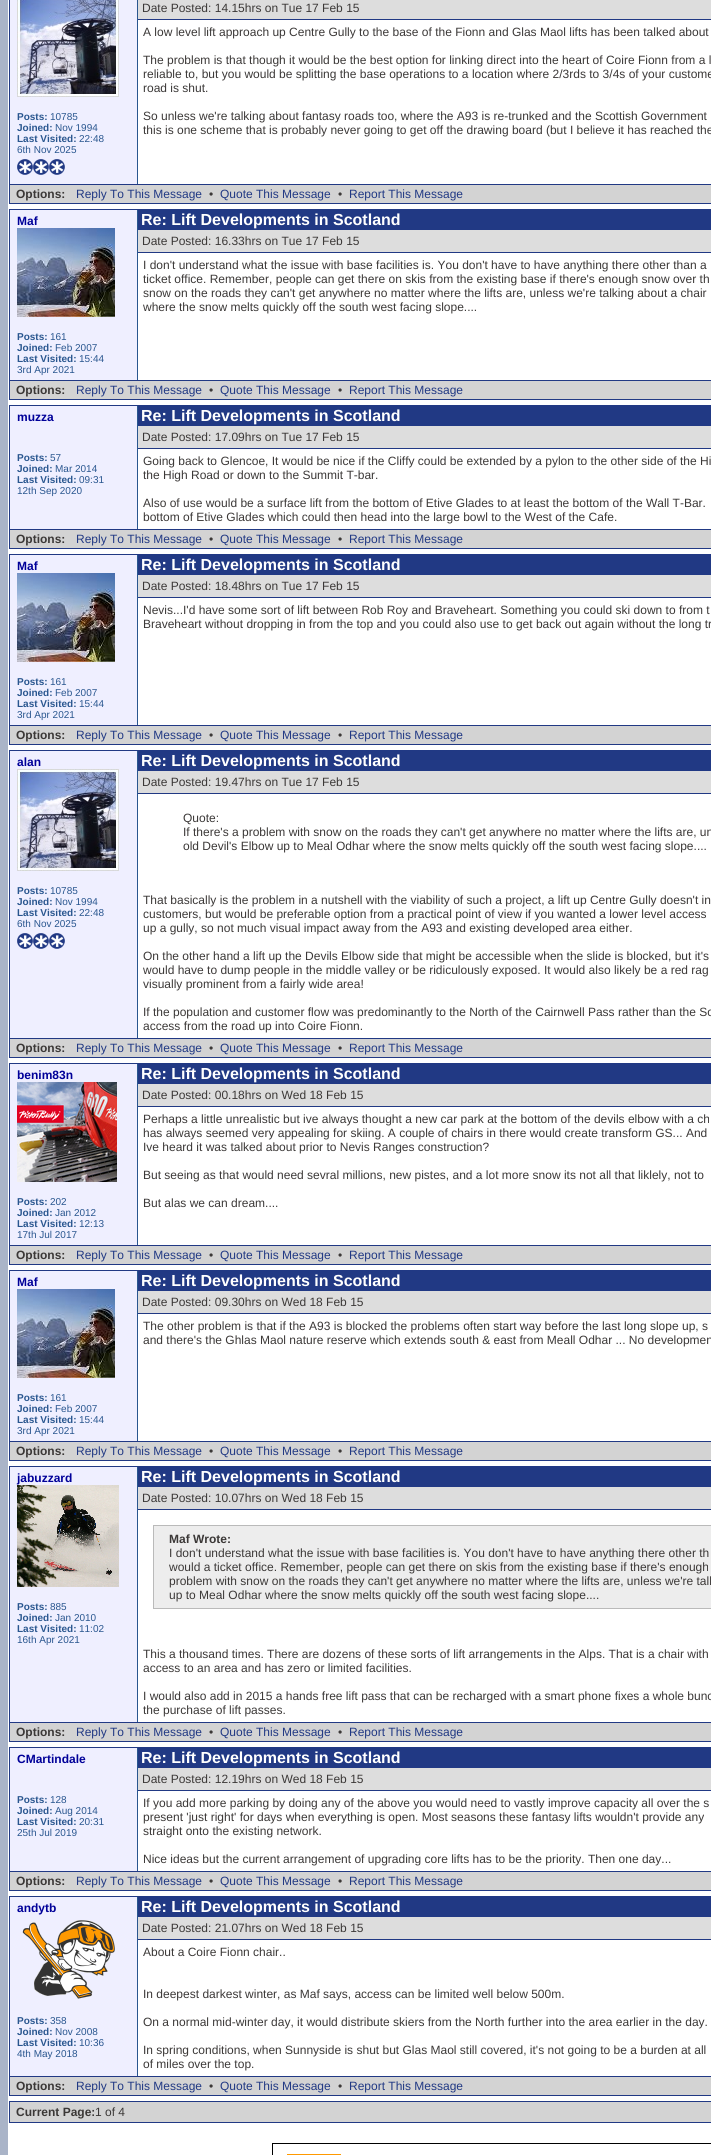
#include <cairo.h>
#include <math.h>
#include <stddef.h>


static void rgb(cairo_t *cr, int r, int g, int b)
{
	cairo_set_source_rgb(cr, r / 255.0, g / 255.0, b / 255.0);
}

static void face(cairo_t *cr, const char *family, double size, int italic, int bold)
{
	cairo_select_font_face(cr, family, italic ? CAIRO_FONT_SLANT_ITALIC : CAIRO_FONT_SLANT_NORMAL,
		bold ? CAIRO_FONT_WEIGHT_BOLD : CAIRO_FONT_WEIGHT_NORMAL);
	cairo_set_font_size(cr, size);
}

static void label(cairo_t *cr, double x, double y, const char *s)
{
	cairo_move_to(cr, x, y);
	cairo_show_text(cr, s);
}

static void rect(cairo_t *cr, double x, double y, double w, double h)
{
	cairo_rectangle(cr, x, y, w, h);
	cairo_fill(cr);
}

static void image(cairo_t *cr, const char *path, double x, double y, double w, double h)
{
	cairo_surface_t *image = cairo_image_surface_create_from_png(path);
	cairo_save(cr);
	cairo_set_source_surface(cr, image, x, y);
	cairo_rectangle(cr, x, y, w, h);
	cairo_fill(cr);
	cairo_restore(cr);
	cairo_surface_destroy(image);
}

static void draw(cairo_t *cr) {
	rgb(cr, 170, 180, 200);
	cairo_paint(cr);
	rgb(cr, 255, 255, 255);
	rect(cr, 8, 0, 703, 2155);
	cairo_rectangle(cr, 9.5, -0.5, 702, 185);
	rgb(cr, 33, 57, 132);
	cairo_set_line_width(cr, 1);
	cairo_stroke(cr);
	rgb(cr, 239, 239, 255);
	rect(cr, 10, 0, 127, 184);
	rgb(cr, 41, 86, 143);
	rect(cr, 137, 0, 1, 184);
	image(cr, "image0.png", 17, 0, 102, 97);
	face(cr, "Liberation Sans", 10, 0, 1);
	label(cr, 17, 120, "Posts:");
	face(cr, "Liberation Sans", 10, 0, 0);
	label(cr, 50, 120, "10785");
	face(cr, "Liberation Sans", 10, 0, 1);
	label(cr, 17, 131, "Joined:");
	face(cr, "Liberation Sans", 10, 0, 0);
	label(cr, 55, 131, "Nov 1994");
	face(cr, "Liberation Sans", 10, 0, 1);
	label(cr, 17, 142, "Last Visited:");
	face(cr, "Liberation Sans", 10, 0, 0);
	label(cr, 79, 142, "22:48");
	label(cr, 17, 153, "6th Nov 2025");
	image(cr, "image1.png", 17, 159, 16, 16);
	image(cr, "image1.png", 33, 159, 16, 16);
	image(cr, "image1.png", 49, 159, 16, 16);
	rgb(cr, 221, 221, 221);
	rect(cr, 138, 0, 573, 19);
	rgb(cr, 33, 57, 132);
	rect(cr, 138, 19, 573, 1);
	face(cr, "Liberation Sans", 12, 0, 0);
	rgb(cr, 59, 56, 55);
	label(cr, 142, 12, "Date Posted: 14.15hrs on Tue 17 Feb 15");
	label(cr, 143, 36, "A low level lift approach up Centre Gully to the base of the Fionn and Glas Maol lifts has been talked about");
	label(cr, 143, 64, "The problem is that though it would be the best option for linking direct into the heart of Coire Fionn from a l");
	label(cr, 143, 78, "reliable to, but you would be splitting the base operations to a location where 2/3rds to 3/4s of your custome");
	label(cr, 143, 92, "road is shut.");
	label(cr, 143, 120, "So unless we're talking about fantasy roads too, where the A93 is re-trunked and the Scottish Government");
	label(cr, 143, 134, "this is one scheme that is probably never going to get off the drawing board (but I believe it has reached the");
	rgb(cr, 211, 211, 211);
	rect(cr, 10, 185, 701, 18);
	rgb(cr, 33, 57, 132);
	rect(cr, 9, 203, 702, 1);
	rect(cr, 9, 185, 1, 19);
	face(cr, "Liberation Sans", 12, 0, 1);
	rgb(cr, 59, 56, 55);
	label(cr, 16, 198, "Options:");
	face(cr, "Liberation Sans", 12, 0, 0);
	rgb(cr, 33, 57, 132);
	label(cr, 76, 198, "Reply To This Message");
	rgb(cr, 59, 56, 55);
	label(cr, 209, 198, "•");
	rgb(cr, 33, 57, 132);
	label(cr, 220, 198, "Quote This Message");
	rgb(cr, 59, 56, 55);
	label(cr, 338, 198, "•");
	rgb(cr, 33, 57, 132);
	label(cr, 349, 198, "Report This Message");
	cairo_rectangle(cr, 9.5, 209.5, 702, 171);
	cairo_stroke(cr);
	rgb(cr, 239, 239, 255);
	rect(cr, 10, 210, 127, 170);
	rgb(cr, 41, 86, 143);
	rect(cr, 137, 210, 1, 170);
	face(cr, "Liberation Sans", 12, 0, 1);
	rgb(cr, 0, 0, 153);
	label(cr, 17, 225, "Maf");
	image(cr, "image2.png", 17, 228, 98, 89);
	face(cr, "Liberation Sans", 10, 0, 1);
	rgb(cr, 41, 86, 143);
	label(cr, 17, 340, "Posts:");
	face(cr, "Liberation Sans", 10, 0, 0);
	label(cr, 50, 340, "161");
	face(cr, "Liberation Sans", 10, 0, 1);
	label(cr, 17, 351, "Joined:");
	face(cr, "Liberation Sans", 10, 0, 0);
	label(cr, 55, 351, "Feb 2007");
	face(cr, "Liberation Sans", 10, 0, 1);
	label(cr, 17, 362, "Last Visited:");
	face(cr, "Liberation Sans", 10, 0, 0);
	label(cr, 79, 362, "15:44");
	label(cr, 17, 373, "3rd Apr 2021");
	rgb(cr, 33, 57, 132);
	rect(cr, 138, 210, 573, 20);
	face(cr, "Liberation Sans", 16, 0, 1);
	rgb(cr, 255, 255, 255);
	label(cr, 141, 225, "Re: Lift Developments in Scotland");
	rgb(cr, 221, 221, 221);
	rect(cr, 138, 230, 573, 22);
	rgb(cr, 33, 57, 132);
	rect(cr, 138, 252, 573, 1);
	face(cr, "Liberation Sans", 12, 0, 0);
	rgb(cr, 59, 56, 55);
	label(cr, 142, 245, "Date Posted: 16.33hrs on Tue 17 Feb 15");
	label(cr, 143, 269, "I don't understand what the issue with base facilities is. You don't have to have anything there other than a");
	label(cr, 143, 283, "ticket office. Remember, people can get there on skis from the existing base if there's enough snow over th");
	label(cr, 143, 297, "snow on the roads they can't get anywhere no matter where the lifts are, unless we're talking about a chair");
	label(cr, 143, 311, "where the snow melts quickly off the south west facing slope....");
	rgb(cr, 211, 211, 211);
	rect(cr, 10, 381, 701, 18);
	rgb(cr, 33, 57, 132);
	rect(cr, 9, 399, 702, 1);
	rect(cr, 9, 381, 1, 19);
	face(cr, "Liberation Sans", 12, 0, 1);
	rgb(cr, 59, 56, 55);
	label(cr, 16, 394, "Options:");
	face(cr, "Liberation Sans", 12, 0, 0);
	rgb(cr, 33, 57, 132);
	label(cr, 76, 394, "Reply To This Message");
	rgb(cr, 59, 56, 55);
	label(cr, 209, 394, "•");
	rgb(cr, 33, 57, 132);
	label(cr, 220, 394, "Quote This Message");
	rgb(cr, 59, 56, 55);
	label(cr, 338, 394, "•");
	rgb(cr, 33, 57, 132);
	label(cr, 349, 394, "Report This Message");
	cairo_rectangle(cr, 9.5, 405.5, 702, 124);
	cairo_stroke(cr);
	rgb(cr, 239, 239, 255);
	rect(cr, 10, 406, 127, 123);
	rgb(cr, 41, 86, 143);
	rect(cr, 137, 406, 1, 123);
	face(cr, "Liberation Sans", 12, 0, 1);
	rgb(cr, 0, 0, 153);
	label(cr, 17, 421, "muzza");
	face(cr, "Liberation Sans", 10, 0, 1);
	rgb(cr, 41, 86, 143);
	label(cr, 17, 461, "Posts:");
	face(cr, "Liberation Sans", 10, 0, 0);
	label(cr, 50, 461, "57");
	face(cr, "Liberation Sans", 10, 0, 1);
	label(cr, 17, 472, "Joined:");
	face(cr, "Liberation Sans", 10, 0, 0);
	label(cr, 55, 472, "Mar 2014");
	face(cr, "Liberation Sans", 10, 0, 1);
	label(cr, 17, 483, "Last Visited:");
	face(cr, "Liberation Sans", 10, 0, 0);
	label(cr, 79, 483, "09:31");
	label(cr, 17, 494, "12th Sep 2020");
	rgb(cr, 33, 57, 132);
	rect(cr, 138, 406, 573, 20);
	face(cr, "Liberation Sans", 16, 0, 1);
	rgb(cr, 255, 255, 255);
	label(cr, 141, 421, "Re: Lift Developments in Scotland");
	rgb(cr, 221, 221, 221);
	rect(cr, 138, 426, 573, 22);
	rgb(cr, 33, 57, 132);
	rect(cr, 138, 448, 573, 1);
	face(cr, "Liberation Sans", 12, 0, 0);
	rgb(cr, 59, 56, 55);
	label(cr, 142, 441, "Date Posted: 17.09hrs on Tue 17 Feb 15");
	label(cr, 143, 465, "Going back to Glencoe, It would be nice if the Cliffy could be extended by a pylon to the other side of the Hi");
	label(cr, 143, 479, "the High Road or down to the Summit T-bar.");
	label(cr, 143, 507, "Also of use would be a surface lift from the bottom of Etive Glades to at least the bottom of the Wall T-Bar.");
	label(cr, 143, 521, "bottom of Etive Glades which could then head into the large bowl to the West of the Cafe.");
	rgb(cr, 211, 211, 211);
	rect(cr, 10, 530, 701, 18);
	rgb(cr, 33, 57, 132);
	rect(cr, 9, 548, 702, 1);
	rect(cr, 9, 530, 1, 19);
	face(cr, "Liberation Sans", 12, 0, 1);
	rgb(cr, 59, 56, 55);
	label(cr, 16, 543, "Options:");
	face(cr, "Liberation Sans", 12, 0, 0);
	rgb(cr, 33, 57, 132);
	label(cr, 76, 543, "Reply To This Message");
	rgb(cr, 59, 56, 55);
	label(cr, 209, 543, "•");
	rgb(cr, 33, 57, 132);
	label(cr, 220, 543, "Quote This Message");
	rgb(cr, 59, 56, 55);
	label(cr, 338, 543, "•");
	rgb(cr, 33, 57, 132);
	label(cr, 349, 543, "Report This Message");
	cairo_rectangle(cr, 9.5, 554.5, 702, 171);
	cairo_stroke(cr);
	rgb(cr, 239, 239, 255);
	rect(cr, 10, 555, 127, 170);
	rgb(cr, 41, 86, 143);
	rect(cr, 137, 555, 1, 170);
	face(cr, "Liberation Sans", 12, 0, 1);
	rgb(cr, 0, 0, 153);
	label(cr, 17, 570, "Maf");
	image(cr, "image2.png", 17, 573, 98, 89);
	face(cr, "Liberation Sans", 10, 0, 1);
	rgb(cr, 41, 86, 143);
	label(cr, 17, 685, "Posts:");
	face(cr, "Liberation Sans", 10, 0, 0);
	label(cr, 50, 685, "161");
	face(cr, "Liberation Sans", 10, 0, 1);
	label(cr, 17, 696, "Joined:");
	face(cr, "Liberation Sans", 10, 0, 0);
	label(cr, 55, 696, "Feb 2007");
	face(cr, "Liberation Sans", 10, 0, 1);
	label(cr, 17, 707, "Last Visited:");
	face(cr, "Liberation Sans", 10, 0, 0);
	label(cr, 79, 707, "15:44");
	label(cr, 17, 718, "3rd Apr 2021");
	rgb(cr, 33, 57, 132);
	rect(cr, 138, 555, 573, 20);
	face(cr, "Liberation Sans", 16, 0, 1);
	rgb(cr, 255, 255, 255);
	label(cr, 141, 570, "Re: Lift Developments in Scotland");
	rgb(cr, 221, 221, 221);
	rect(cr, 138, 575, 573, 22);
	rgb(cr, 33, 57, 132);
	rect(cr, 138, 597, 573, 1);
	face(cr, "Liberation Sans", 12, 0, 0);
	rgb(cr, 59, 56, 55);
	label(cr, 142, 590, "Date Posted: 18.48hrs on Tue 17 Feb 15");
	label(cr, 143, 614, "Nevis...I'd have some sort of lift between Rob Roy and Braveheart. Something you could ski down to from t");
	label(cr, 143, 628, "Braveheart without dropping in from the top and you could also use to get back out again without the long tr");
	rgb(cr, 211, 211, 211);
	rect(cr, 10, 726, 701, 18);
	rgb(cr, 33, 57, 132);
	rect(cr, 9, 744, 702, 1);
	rect(cr, 9, 726, 1, 19);
	face(cr, "Liberation Sans", 12, 0, 1);
	rgb(cr, 59, 56, 55);
	label(cr, 16, 739, "Options:");
	face(cr, "Liberation Sans", 12, 0, 0);
	rgb(cr, 33, 57, 132);
	label(cr, 76, 739, "Reply To This Message");
	rgb(cr, 59, 56, 55);
	label(cr, 209, 739, "•");
	rgb(cr, 33, 57, 132);
	label(cr, 220, 739, "Quote This Message");
	rgb(cr, 59, 56, 55);
	label(cr, 338, 739, "•");
	rgb(cr, 33, 57, 132);
	label(cr, 349, 739, "Report This Message");
	cairo_rectangle(cr, 9.5, 750.5, 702, 288);
	cairo_stroke(cr);
	rgb(cr, 239, 239, 255);
	rect(cr, 10, 751, 127, 287);
	rgb(cr, 41, 86, 143);
	rect(cr, 137, 751, 1, 287);
	face(cr, "Liberation Sans", 12, 0, 1);
	rgb(cr, 0, 0, 153);
	label(cr, 17, 766, "alan");
	image(cr, "image3.png", 17, 769, 102, 102);
	face(cr, "Liberation Sans", 10, 0, 1);
	rgb(cr, 41, 86, 143);
	label(cr, 17, 894, "Posts:");
	face(cr, "Liberation Sans", 10, 0, 0);
	label(cr, 50, 894, "10785");
	face(cr, "Liberation Sans", 10, 0, 1);
	label(cr, 17, 905, "Joined:");
	face(cr, "Liberation Sans", 10, 0, 0);
	label(cr, 55, 905, "Nov 1994");
	face(cr, "Liberation Sans", 10, 0, 1);
	label(cr, 17, 916, "Last Visited:");
	face(cr, "Liberation Sans", 10, 0, 0);
	label(cr, 79, 916, "22:48");
	label(cr, 17, 927, "6th Nov 2025");
	image(cr, "image1.png", 17, 933, 16, 16);
	image(cr, "image1.png", 33, 933, 16, 16);
	image(cr, "image1.png", 49, 933, 16, 16);
	rgb(cr, 33, 57, 132);
	rect(cr, 138, 751, 573, 20);
	face(cr, "Liberation Sans", 16, 0, 1);
	rgb(cr, 255, 255, 255);
	label(cr, 141, 766, "Re: Lift Developments in Scotland");
	rgb(cr, 221, 221, 221);
	rect(cr, 138, 771, 573, 22);
	rgb(cr, 33, 57, 132);
	rect(cr, 138, 793, 573, 1);
	face(cr, "Liberation Sans", 12, 0, 0);
	rgb(cr, 59, 56, 55);
	label(cr, 142, 786, "Date Posted: 19.47hrs on Tue 17 Feb 15");
	label(cr, 183, 822, "Quote:");
	label(cr, 183, 836, "If there's a problem with snow on the roads they can't get anywhere no matter where the lifts are, un");
	label(cr, 183, 850, "old Devil's Elbow up to Meal Odhar where the snow melts quickly off the south west facing slope....");
	label(cr, 143, 904, "That basically is the problem in a nutshell with the viability of such a project, a lift up Centre Gully doesn't in");
	label(cr, 143, 918, "customers, but would be preferable option from a practical point of view if you wanted a lower level access");
	label(cr, 143, 932, "up a gully, so not much visual impact away from the A93 and existing developed area either.");
	label(cr, 143, 960, "On the other hand a lift up the Devils Elbow side that might be accessible when the slide is blocked, but it's");
	label(cr, 143, 974, "would have to dump people in the middle valley or be ridiculously exposed. It would also likely be a red rag");
	label(cr, 143, 988, "visually prominent from a fairly wide area!");
	label(cr, 143, 1016, "If the population and customer flow was predominantly to the North of the Cairnwell Pass rather than the So");
	label(cr, 143, 1030, "access from the road up into Coire Fionn.");
	rgb(cr, 211, 211, 211);
	rect(cr, 10, 1039, 701, 18);
	rgb(cr, 33, 57, 132);
	rect(cr, 9, 1057, 702, 1);
	rect(cr, 9, 1039, 1, 19);
	face(cr, "Liberation Sans", 12, 0, 1);
	rgb(cr, 59, 56, 55);
	label(cr, 16, 1052, "Options:");
	face(cr, "Liberation Sans", 12, 0, 0);
	rgb(cr, 33, 57, 132);
	label(cr, 76, 1052, "Reply To This Message");
	rgb(cr, 59, 56, 55);
	label(cr, 209, 1052, "•");
	rgb(cr, 33, 57, 132);
	label(cr, 220, 1052, "Quote This Message");
	rgb(cr, 59, 56, 55);
	label(cr, 338, 1052, "•");
	rgb(cr, 33, 57, 132);
	label(cr, 349, 1052, "Report This Message");
	cairo_rectangle(cr, 9.5, 1063.5, 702, 182);
	cairo_stroke(cr);
	rgb(cr, 239, 239, 255);
	rect(cr, 10, 1064, 127, 181);
	rgb(cr, 41, 86, 143);
	rect(cr, 137, 1064, 1, 181);
	face(cr, "Liberation Sans", 12, 0, 1);
	rgb(cr, 0, 0, 153);
	label(cr, 17, 1079, "benim83n");
	image(cr, "image4.png", 17, 1082, 100, 100);
	face(cr, "Liberation Sans", 10, 0, 1);
	rgb(cr, 41, 86, 143);
	label(cr, 17, 1205, "Posts:");
	face(cr, "Liberation Sans", 10, 0, 0);
	label(cr, 50, 1205, "202");
	face(cr, "Liberation Sans", 10, 0, 1);
	label(cr, 17, 1216, "Joined:");
	face(cr, "Liberation Sans", 10, 0, 0);
	label(cr, 55, 1216, "Jan 2012");
	face(cr, "Liberation Sans", 10, 0, 1);
	label(cr, 17, 1227, "Last Visited:");
	face(cr, "Liberation Sans", 10, 0, 0);
	label(cr, 79, 1227, "12:13");
	label(cr, 17, 1238, "17th Jul 2017");
	rgb(cr, 33, 57, 132);
	rect(cr, 138, 1064, 573, 20);
	face(cr, "Liberation Sans", 16, 0, 1);
	rgb(cr, 255, 255, 255);
	label(cr, 141, 1079, "Re: Lift Developments in Scotland");
	rgb(cr, 221, 221, 221);
	rect(cr, 138, 1084, 573, 22);
	rgb(cr, 33, 57, 132);
	rect(cr, 138, 1106, 573, 1);
	face(cr, "Liberation Sans", 12, 0, 0);
	rgb(cr, 59, 56, 55);
	label(cr, 142, 1099, "Date Posted: 00.18hrs on Wed 18 Feb 15");
	label(cr, 143, 1123, "Perhaps a little unrealistic but ive always thought a new car park at the bottom of the devils elbow with a ch");
	label(cr, 143, 1137, "has always seemed very appealing for skiing. A couple of chairs in there would create transform GS... And");
	label(cr, 143, 1151, "Ive heard it was talked about prior to Nevis Ranges construction?");
	label(cr, 143, 1179, "But seeing as that would need sevral millions, new pistes, and a lot more snow its not all that liklely, not to");
	label(cr, 143, 1207, "But alas we can dream....");
	rgb(cr, 211, 211, 211);
	rect(cr, 10, 1246, 701, 18);
	rgb(cr, 33, 57, 132);
	rect(cr, 9, 1264, 702, 1);
	rect(cr, 9, 1246, 1, 19);
	face(cr, "Liberation Sans", 12, 0, 1);
	rgb(cr, 59, 56, 55);
	label(cr, 16, 1259, "Options:");
	face(cr, "Liberation Sans", 12, 0, 0);
	rgb(cr, 33, 57, 132);
	label(cr, 76, 1259, "Reply To This Message");
	rgb(cr, 59, 56, 55);
	label(cr, 209, 1259, "•");
	rgb(cr, 33, 57, 132);
	label(cr, 220, 1259, "Quote This Message");
	rgb(cr, 59, 56, 55);
	label(cr, 338, 1259, "•");
	rgb(cr, 33, 57, 132);
	label(cr, 349, 1259, "Report This Message");
	cairo_rectangle(cr, 9.5, 1270.5, 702, 171);
	cairo_stroke(cr);
	rgb(cr, 239, 239, 255);
	rect(cr, 10, 1271, 127, 170);
	rgb(cr, 41, 86, 143);
	rect(cr, 137, 1271, 1, 170);
	face(cr, "Liberation Sans", 12, 0, 1);
	rgb(cr, 0, 0, 153);
	label(cr, 17, 1286, "Maf");
	image(cr, "image2.png", 17, 1289, 98, 89);
	face(cr, "Liberation Sans", 10, 0, 1);
	rgb(cr, 41, 86, 143);
	label(cr, 17, 1401, "Posts:");
	face(cr, "Liberation Sans", 10, 0, 0);
	label(cr, 50, 1401, "161");
	face(cr, "Liberation Sans", 10, 0, 1);
	label(cr, 17, 1412, "Joined:");
	face(cr, "Liberation Sans", 10, 0, 0);
	label(cr, 55, 1412, "Feb 2007");
	face(cr, "Liberation Sans", 10, 0, 1);
	label(cr, 17, 1423, "Last Visited:");
	face(cr, "Liberation Sans", 10, 0, 0);
	label(cr, 79, 1423, "15:44");
	label(cr, 17, 1434, "3rd Apr 2021");
	rgb(cr, 33, 57, 132);
	rect(cr, 138, 1271, 573, 20);
	face(cr, "Liberation Sans", 16, 0, 1);
	rgb(cr, 255, 255, 255);
	label(cr, 141, 1286, "Re: Lift Developments in Scotland");
	rgb(cr, 221, 221, 221);
	rect(cr, 138, 1291, 573, 22);
	rgb(cr, 33, 57, 132);
	rect(cr, 138, 1313, 573, 1);
	face(cr, "Liberation Sans", 12, 0, 0);
	rgb(cr, 59, 56, 55);
	label(cr, 142, 1306, "Date Posted: 09.30hrs on Wed 18 Feb 15");
	label(cr, 143, 1330, "The other problem is that if the A93 is blocked the problems often start way before the last long slope up, s");
	label(cr, 143, 1344, "and there's the Ghlas Maol nature reserve which extends south & east from Meall Odhar ... No developmen");
	rgb(cr, 211, 211, 211);
	rect(cr, 10, 1442, 701, 18);
	rgb(cr, 33, 57, 132);
	rect(cr, 9, 1460, 702, 1);
	rect(cr, 9, 1442, 1, 19);
	face(cr, "Liberation Sans", 12, 0, 1);
	rgb(cr, 59, 56, 55);
	label(cr, 16, 1455, "Options:");
	face(cr, "Liberation Sans", 12, 0, 0);
	rgb(cr, 33, 57, 132);
	label(cr, 76, 1455, "Reply To This Message");
	rgb(cr, 59, 56, 55);
	label(cr, 209, 1455, "•");
	rgb(cr, 33, 57, 132);
	label(cr, 220, 1455, "Quote This Message");
	rgb(cr, 59, 56, 55);
	label(cr, 338, 1455, "•");
	rgb(cr, 33, 57, 132);
	label(cr, 349, 1455, "Report This Message");
	cairo_rectangle(cr, 9.5, 1466.5, 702, 256);
	cairo_stroke(cr);
	rgb(cr, 239, 239, 255);
	rect(cr, 10, 1467, 127, 255);
	rgb(cr, 41, 86, 143);
	rect(cr, 137, 1467, 1, 255);
	face(cr, "Liberation Sans", 12, 0, 1);
	rgb(cr, 0, 0, 153);
	label(cr, 17, 1482, "jabuzzard");
	image(cr, "image5.png", 17, 1485, 102, 102);
	face(cr, "Liberation Sans", 10, 0, 1);
	rgb(cr, 41, 86, 143);
	label(cr, 17, 1610, "Posts:");
	face(cr, "Liberation Sans", 10, 0, 0);
	label(cr, 50, 1610, "885");
	face(cr, "Liberation Sans", 10, 0, 1);
	label(cr, 17, 1621, "Joined:");
	face(cr, "Liberation Sans", 10, 0, 0);
	label(cr, 55, 1621, "Jan 2010");
	face(cr, "Liberation Sans", 10, 0, 1);
	label(cr, 17, 1632, "Last Visited:");
	face(cr, "Liberation Sans", 10, 0, 0);
	label(cr, 79, 1632, "11:02");
	label(cr, 17, 1643, "16th Apr 2021");
	rgb(cr, 33, 57, 132);
	rect(cr, 138, 1467, 573, 20);
	face(cr, "Liberation Sans", 16, 0, 1);
	rgb(cr, 255, 255, 255);
	label(cr, 141, 1482, "Re: Lift Developments in Scotland");
	rgb(cr, 221, 221, 221);
	rect(cr, 138, 1487, 573, 22);
	rgb(cr, 33, 57, 132);
	rect(cr, 138, 1509, 573, 1);
	face(cr, "Liberation Sans", 12, 0, 0);
	rgb(cr, 59, 56, 55);
	label(cr, 142, 1502, "Date Posted: 10.07hrs on Wed 18 Feb 15");
	rgb(cr, 237, 237, 237);
	cairo_rectangle(cr, 153.5, 1525.5, 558, 83);
	cairo_fill_preserve(cr);
	rgb(cr, 186, 186, 186);
	cairo_stroke(cr);
	face(cr, "Liberation Sans", 12, 0, 1);
	rgb(cr, 59, 56, 55);
	label(cr, 169, 1543, "Maf Wrote:");
	face(cr, "Liberation Sans", 12, 0, 0);
	label(cr, 169, 1557, "I don't understand what the issue with base facilities is. You don't have to have anything there other th");
	label(cr, 169, 1571, "would a ticket office. Remember, people can get there on skis from the existing base if there's enough");
	label(cr, 169, 1585, "problem with snow on the roads they can't get anywhere no matter where the lifts are, unless we're talk");
	label(cr, 169, 1599, "up to Meal Odhar where the snow melts quickly off the south west facing slope....");
	label(cr, 143, 1658, "This a thousand times. There are dozens of these sorts of lift arrangements in the Alps. That is a chair with");
	label(cr, 143, 1672, "access to an area and has zero or limited facilities.");
	label(cr, 143, 1700, "I would also add in 2015 a hands free lift pass that can be recharged with a smart phone fixes a whole bunc");
	label(cr, 143, 1714, "the purchase of lift passes.");
	rgb(cr, 211, 211, 211);
	rect(cr, 10, 1723, 701, 18);
	rgb(cr, 33, 57, 132);
	rect(cr, 9, 1741, 702, 1);
	rect(cr, 9, 1723, 1, 19);
	face(cr, "Liberation Sans", 12, 0, 1);
	rgb(cr, 59, 56, 55);
	label(cr, 16, 1736, "Options:");
	face(cr, "Liberation Sans", 12, 0, 0);
	rgb(cr, 33, 57, 132);
	label(cr, 76, 1736, "Reply To This Message");
	rgb(cr, 59, 56, 55);
	label(cr, 209, 1736, "•");
	rgb(cr, 33, 57, 132);
	label(cr, 220, 1736, "Quote This Message");
	rgb(cr, 59, 56, 55);
	label(cr, 338, 1736, "•");
	rgb(cr, 33, 57, 132);
	label(cr, 349, 1736, "Report This Message");
	cairo_rectangle(cr, 9.5, 1747.5, 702, 124);
	cairo_stroke(cr);
	rgb(cr, 239, 239, 255);
	rect(cr, 10, 1748, 127, 123);
	rgb(cr, 41, 86, 143);
	rect(cr, 137, 1748, 1, 123);
	face(cr, "Liberation Sans", 12, 0, 1);
	rgb(cr, 0, 0, 153);
	label(cr, 17, 1763, "CMartindale");
	face(cr, "Liberation Sans", 10, 0, 1);
	rgb(cr, 41, 86, 143);
	label(cr, 17, 1803, "Posts:");
	face(cr, "Liberation Sans", 10, 0, 0);
	label(cr, 50, 1803, "128");
	face(cr, "Liberation Sans", 10, 0, 1);
	label(cr, 17, 1814, "Joined:");
	face(cr, "Liberation Sans", 10, 0, 0);
	label(cr, 55, 1814, "Aug 2014");
	face(cr, "Liberation Sans", 10, 0, 1);
	label(cr, 17, 1825, "Last Visited:");
	face(cr, "Liberation Sans", 10, 0, 0);
	label(cr, 79, 1825, "20:31");
	label(cr, 17, 1836, "25th Jul 2019");
	rgb(cr, 33, 57, 132);
	rect(cr, 138, 1748, 573, 20);
	face(cr, "Liberation Sans", 16, 0, 1);
	rgb(cr, 255, 255, 255);
	label(cr, 141, 1763, "Re: Lift Developments in Scotland");
	rgb(cr, 221, 221, 221);
	rect(cr, 138, 1768, 573, 22);
	rgb(cr, 33, 57, 132);
	rect(cr, 138, 1790, 573, 1);
	face(cr, "Liberation Sans", 12, 0, 0);
	rgb(cr, 59, 56, 55);
	label(cr, 142, 1783, "Date Posted: 12.19hrs on Wed 18 Feb 15");
	label(cr, 143, 1807, "If you add more parking by doing any of the above you would need to vastly improve capacity all over the s");
	label(cr, 143, 1821, "present 'just right' for days when everything is open. Most seasons these fantasy lifts wouldn't provide any");
	label(cr, 143, 1835, "straight onto the existing network.");
	label(cr, 143, 1863, "Nice ideas but the current arrangement of upgrading core lifts has to be the priority. Then one day...");
	rgb(cr, 211, 211, 211);
	rect(cr, 10, 1872, 701, 18);
	rgb(cr, 33, 57, 132);
	rect(cr, 9, 1890, 702, 1);
	rect(cr, 9, 1872, 1, 19);
	face(cr, "Liberation Sans", 12, 0, 1);
	rgb(cr, 59, 56, 55);
	label(cr, 16, 1885, "Options:");
	face(cr, "Liberation Sans", 12, 0, 0);
	rgb(cr, 33, 57, 132);
	label(cr, 76, 1885, "Reply To This Message");
	rgb(cr, 59, 56, 55);
	label(cr, 209, 1885, "•");
	rgb(cr, 33, 57, 132);
	label(cr, 220, 1885, "Quote This Message");
	rgb(cr, 59, 56, 55);
	label(cr, 338, 1885, "•");
	rgb(cr, 33, 57, 132);
	label(cr, 349, 1885, "Report This Message");
	cairo_rectangle(cr, 9.5, 1896.5, 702, 180);
	cairo_stroke(cr);
	rgb(cr, 239, 239, 255);
	rect(cr, 10, 1897, 127, 179);
	rgb(cr, 41, 86, 143);
	rect(cr, 137, 1897, 1, 179);
	face(cr, "Liberation Sans", 12, 0, 1);
	rgb(cr, 0, 0, 153);
	label(cr, 17, 1912, "andytb");
	image(cr, "image6.png", 22, 1920, 93, 79);
	face(cr, "Liberation Sans", 10, 0, 1);
	rgb(cr, 41, 86, 143);
	label(cr, 17, 2024, "Posts:");
	face(cr, "Liberation Sans", 10, 0, 0);
	label(cr, 50, 2024, "358");
	face(cr, "Liberation Sans", 10, 0, 1);
	label(cr, 17, 2035, "Joined:");
	face(cr, "Liberation Sans", 10, 0, 0);
	label(cr, 55, 2035, "Nov 2008");
	face(cr, "Liberation Sans", 10, 0, 1);
	label(cr, 17, 2046, "Last Visited:");
	face(cr, "Liberation Sans", 10, 0, 0);
	label(cr, 79, 2046, "10:36");
	label(cr, 17, 2057, "4th May 2018");
	rgb(cr, 33, 57, 132);
	rect(cr, 138, 1897, 573, 20);
	face(cr, "Liberation Sans", 16, 0, 1);
	rgb(cr, 255, 255, 255);
	label(cr, 141, 1912, "Re: Lift Developments in Scotland");
	rgb(cr, 221, 221, 221);
	rect(cr, 138, 1917, 573, 22);
	rgb(cr, 33, 57, 132);
	rect(cr, 138, 1939, 573, 1);
	face(cr, "Liberation Sans", 12, 0, 0);
	rgb(cr, 59, 56, 55);
	label(cr, 142, 1932, "Date Posted: 21.07hrs on Wed 18 Feb 15");
	label(cr, 143, 1956, "About a Coire Fionn chair..");
	label(cr, 143, 1998, "In deepest darkest winter, as Maf says, access can be limited well below 500m.");
	label(cr, 143, 2026, "On a normal mid-winter day, it would distribute skiers from the North further into the area earlier in the day.");
	label(cr, 143, 2054, "In spring conditions, when Sunnyside is shut but Glas Maol still covered, it's not going to be a burden at all");
	label(cr, 143, 2068, "of miles over the top.");
	rgb(cr, 211, 211, 211);
	rect(cr, 10, 2077, 701, 18);
	rgb(cr, 33, 57, 132);
	rect(cr, 9, 2095, 702, 1);
	rect(cr, 9, 2077, 1, 19);
	face(cr, "Liberation Sans", 12, 0, 1);
	rgb(cr, 59, 56, 55);
	label(cr, 16, 2090, "Options:");
	face(cr, "Liberation Sans", 12, 0, 0);
	rgb(cr, 33, 57, 132);
	label(cr, 76, 2090, "Reply To This Message");
	rgb(cr, 59, 56, 55);
	label(cr, 209, 2090, "•");
	rgb(cr, 33, 57, 132);
	label(cr, 220, 2090, "Quote This Message");
	rgb(cr, 59, 56, 55);
	label(cr, 338, 2090, "•");
	rgb(cr, 33, 57, 132);
	label(cr, 349, 2090, "Report This Message");
	rgb(cr, 211, 211, 211);
	cairo_rectangle(cr, 9.5, 2101.5, 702, 21);
	cairo_fill_preserve(cr);
	rgb(cr, 33, 57, 132);
	cairo_stroke(cr);
	face(cr, "Liberation Sans", 12, 0, 1);
	rgb(cr, 59, 56, 55);
	label(cr, 16, 2116, "Current Page:");
	face(cr, "Liberation Sans", 12, 0, 0);
	label(cr, 95, 2116, "1 of 4");
	cairo_rectangle(cr, 272.5, 2143.5, 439, 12);
	rgb(cr, 0, 0, 0);
	cairo_stroke(cr);
	rgb(cr, 255, 153, 0);
	rect(cr, 287, 2154, 54, 1);
}

int main(void) {
	cairo_surface_t *surface = cairo_image_surface_create(CAIRO_FORMAT_RGB24, 711, 2155);
	cairo_t *cr = cairo_create(surface);
	cairo_font_options_t *options = cairo_font_options_create();
	cairo_font_options_set_hint_metrics(options, CAIRO_HINT_METRICS_OFF);
	cairo_font_options_set_hint_style(options, CAIRO_HINT_STYLE_NONE);
	cairo_set_font_options(cr, options);
	cairo_set_miter_limit(cr, 4);
	draw(cr);
	cairo_surface_write_to_png(surface, "render.png");
	cairo_font_options_destroy(options);
	cairo_destroy(cr);
	cairo_surface_destroy(surface);
	return 0;
}
